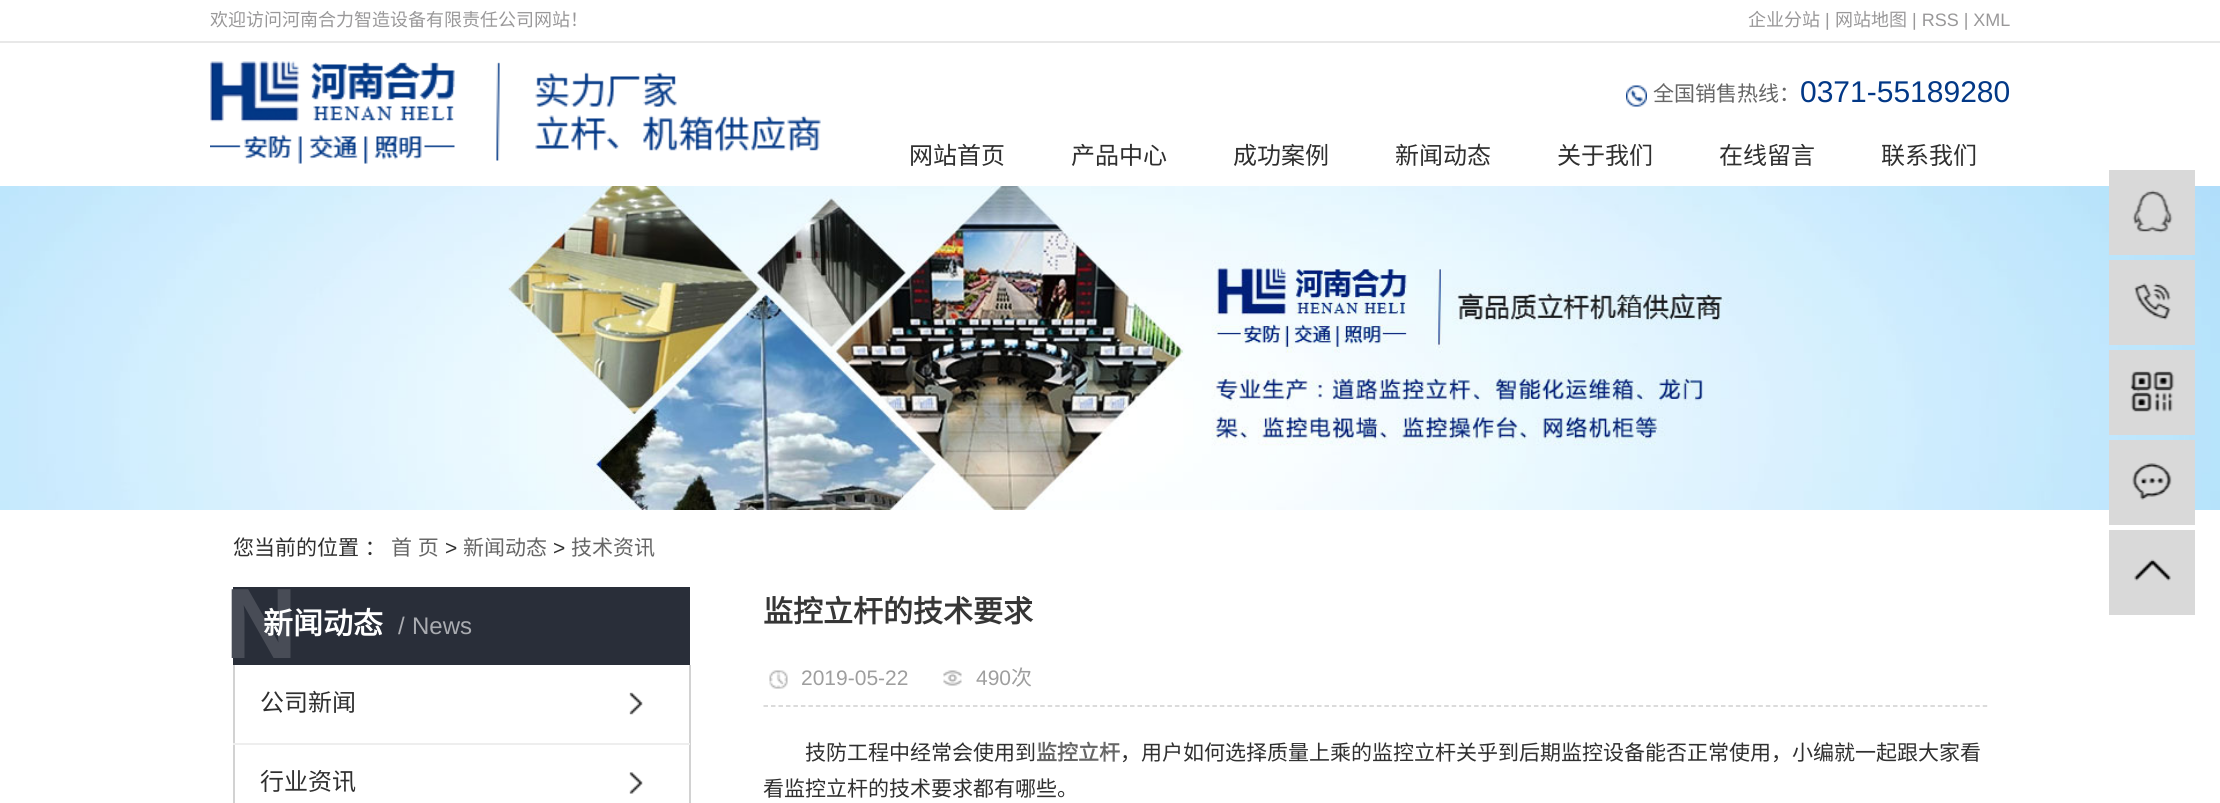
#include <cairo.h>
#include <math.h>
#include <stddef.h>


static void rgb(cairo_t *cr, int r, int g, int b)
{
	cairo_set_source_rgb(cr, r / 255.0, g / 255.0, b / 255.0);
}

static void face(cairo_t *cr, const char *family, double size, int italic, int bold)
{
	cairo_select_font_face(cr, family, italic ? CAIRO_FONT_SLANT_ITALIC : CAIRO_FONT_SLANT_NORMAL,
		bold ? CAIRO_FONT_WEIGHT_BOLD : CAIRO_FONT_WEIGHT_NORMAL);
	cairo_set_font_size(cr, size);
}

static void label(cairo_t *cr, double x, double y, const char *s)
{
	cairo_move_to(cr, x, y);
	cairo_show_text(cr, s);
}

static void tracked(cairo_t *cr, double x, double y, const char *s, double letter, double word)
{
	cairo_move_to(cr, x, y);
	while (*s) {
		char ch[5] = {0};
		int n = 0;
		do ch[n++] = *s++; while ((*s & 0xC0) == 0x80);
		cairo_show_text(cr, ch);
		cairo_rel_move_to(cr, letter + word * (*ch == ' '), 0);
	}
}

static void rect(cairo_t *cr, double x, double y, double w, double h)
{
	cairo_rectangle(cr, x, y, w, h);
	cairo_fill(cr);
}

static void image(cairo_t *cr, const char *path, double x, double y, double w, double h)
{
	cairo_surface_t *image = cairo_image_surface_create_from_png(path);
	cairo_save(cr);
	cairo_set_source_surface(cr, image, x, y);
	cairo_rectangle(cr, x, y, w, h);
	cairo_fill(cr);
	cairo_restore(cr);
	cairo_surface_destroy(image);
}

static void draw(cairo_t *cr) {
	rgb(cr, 255, 255, 255);
	cairo_paint(cr);
	rgb(cr, 232, 232, 232);
	rect(cr, 0, 41, 2220, 2);
	face(cr, "Noto Sans CJK SC", 18, 0, 0);
	rgb(cr, 153, 152, 153);
	label(cr, 210, 26, "欢迎访问河南合力智造设备有限责任公司网站！");
	label(cr, 1748, 26, "企业分站");
	face(cr, "Liberation Sans", 18, 0, 0);
	label(cr, 1825, 26, "|");
	face(cr, "Noto Sans CJK SC", 18, 0, 0);
	label(cr, 1835, 26, "网站地图");
	face(cr, "Liberation Sans", 18, 0, 0);
	label(cr, 1912, 26, "| RSS | XML");
	image(cr, "image0.png", 210, 61, 611, 103);
	image(cr, "image1.png", 1626, 85, 21, 22);
	face(cr, "Noto Sans CJK SC", 21, 0, 0);
	rgb(cr, 102, 102, 102);
	label(cr, 1653, 101, "全国销售热线：");
	face(cr, "Liberation Sans", 30, 0, 0);
	rgb(cr, 2, 56, 134);
	label(cr, 1800, 102, "0371-55189280");
	face(cr, "Noto Sans CJK SC", 24, 0, 0);
	rgb(cr, 47, 47, 47);
	label(cr, 909, 164, "网站首页");
	label(cr, 1071, 164, "产品中心");
	label(cr, 1233, 164, "成功案例");
	label(cr, 1395, 164, "新闻动态");
	label(cr, 1557, 164, "关于我们");
	label(cr, 1719, 164, "在线留言");
	label(cr, 1881, 164, "联系我们");
	image(cr, "image7.png", 0, 186, 2220, 324);
	rgb(cr, 217, 217, 217);
	rect(cr, 2109, 170, 86, 85);
	image(cr, "image2.png", 2132, 190, 41, 43);
	rect(cr, 2109, 260, 86, 85);
	image(cr, "image3.png", 2134, 283, 37, 37);
	rect(cr, 2109, 350, 86, 85);
	image(cr, "image4.png", 2130, 371, 45, 41);
	rect(cr, 2109, 440, 86, 85);
	image(cr, "image5.png", 2132, 463, 40, 37);
	rect(cr, 2109, 530, 86, 85);
	image(cr, "image6.png", 2134, 559, 37, 22);
	face(cr, "Noto Sans CJK SC", 21, 0, 0);
	rgb(cr, 47, 47, 47);
	tracked(cr, 233, 555, "您当前的位置 ：", 0, 1);
	rgb(cr, 102, 102, 102);
	tracked(cr, 391, 555, "首 页", 0, 1);
	face(cr, "Liberation Sans", 21, 0, 0);
	rgb(cr, 47, 47, 47);
	label(cr, 445, 555, ">");
	face(cr, "Noto Sans CJK SC", 21, 0, 0);
	rgb(cr, 102, 102, 102);
	label(cr, 463, 555, "新闻动态");
	face(cr, "Liberation Sans", 21, 0, 0);
	rgb(cr, 47, 47, 47);
	label(cr, 553, 555, ">");
	face(cr, "Noto Sans CJK SC", 21, 0, 0);
	rgb(cr, 102, 102, 102);
	label(cr, 571, 555, "技术资讯");
	rgb(cr, 41, 46, 57);
	rect(cr, 233, 587, 457, 78);
	face(cr, "Liberation Sans", 100, 0, 1);
	rgb(cr, 72, 76, 86);
	label(cr, 225, 658, "N");
	face(cr, "Noto Sans CJK SC", 30, 0, 1);
	rgb(cr, 255, 255, 255);
	label(cr, 263, 634, "新闻动态");
	face(cr, "Liberation Sans", 24, 0, 0);
	rgb(cr, 169, 171, 176);
	label(cr, 398, 634, "/");
	label(cr, 412, 634, "News");
	rgb(cr, 210, 210, 210);
	rect(cr, 689, 665, 2, 138);
	rect(cr, 233, 665, 2, 138);
	rgb(cr, 238, 238, 238);
	rect(cr, 233, 743, 457, 2);
	face(cr, "Noto Sans CJK SC", 24, 0, 0);
	rgb(cr, 47, 47, 47);
	label(cr, 260, 711, "公司新闻");
	image(cr, "image8.png", 629, 692, 14, 23);
	label(cr, 260, 790, "行业资讯");
	image(cr, "image9.png", 629, 772, 14, 22);
	face(cr, "Noto Sans CJK SC", 30, 0, 1);
	rgb(cr, 54, 54, 54);
	label(cr, 763, 622, "监控立杆的技术要求");
	cairo_new_path(cr);
	cairo_move_to(cr, 763.5, 706);
	cairo_line_to(cr, 1987.5, 706);
	rgb(cr, 207, 207, 207);
	cairo_set_line_width(cr, 1.5);
	cairo_set_dash(cr, (double[]){4.5, 2.98}, 2, 0);
	cairo_stroke(cr);
	image(cr, "image10.png", 769, 670, 19, 19);
	face(cr, "Liberation Sans", 21, 0, 0);
	rgb(cr, 158, 158, 158);
	label(cr, 801, 685, "2019-05-22");
	image(cr, "image11.png", 943, 670, 19, 16);
	label(cr, 976, 685, "490");
	face(cr, "Noto Sans CJK SC", 21, 0, 0);
	label(cr, 1011, 685, "次");
	rgb(cr, 47, 47, 47);
	label(cr, 805, 760, "技防工程中经常会使用到");
	face(cr, "Noto Sans CJK SC", 21, 0, 1);
	rgb(cr, 102, 102, 102);
	label(cr, 1036, 760, "监控立杆");
	face(cr, "Noto Sans CJK SC", 21, 0, 0);
	rgb(cr, 47, 47, 47);
	label(cr, 1120, 760, "，用户如何选择质量上乘的监控立杆关乎到后期监控设备能否正常使用，小编就一起跟大家看");
	label(cr, 763, 796, "看监控立杆的技术要求都有哪些。");
}

int main(void) {
	cairo_surface_t *surface = cairo_image_surface_create(CAIRO_FORMAT_RGB24, 2220, 803);
	cairo_t *cr = cairo_create(surface);
	cairo_font_options_t *options = cairo_font_options_create();
	cairo_font_options_set_hint_metrics(options, CAIRO_HINT_METRICS_OFF);
	cairo_font_options_set_hint_style(options, CAIRO_HINT_STYLE_NONE);
	cairo_set_font_options(cr, options);
	cairo_set_miter_limit(cr, 4);
	draw(cr);
	cairo_surface_write_to_png(surface, "render.png");
	cairo_font_options_destroy(options);
	cairo_destroy(cr);
	cairo_surface_destroy(surface);
	return 0;
}
